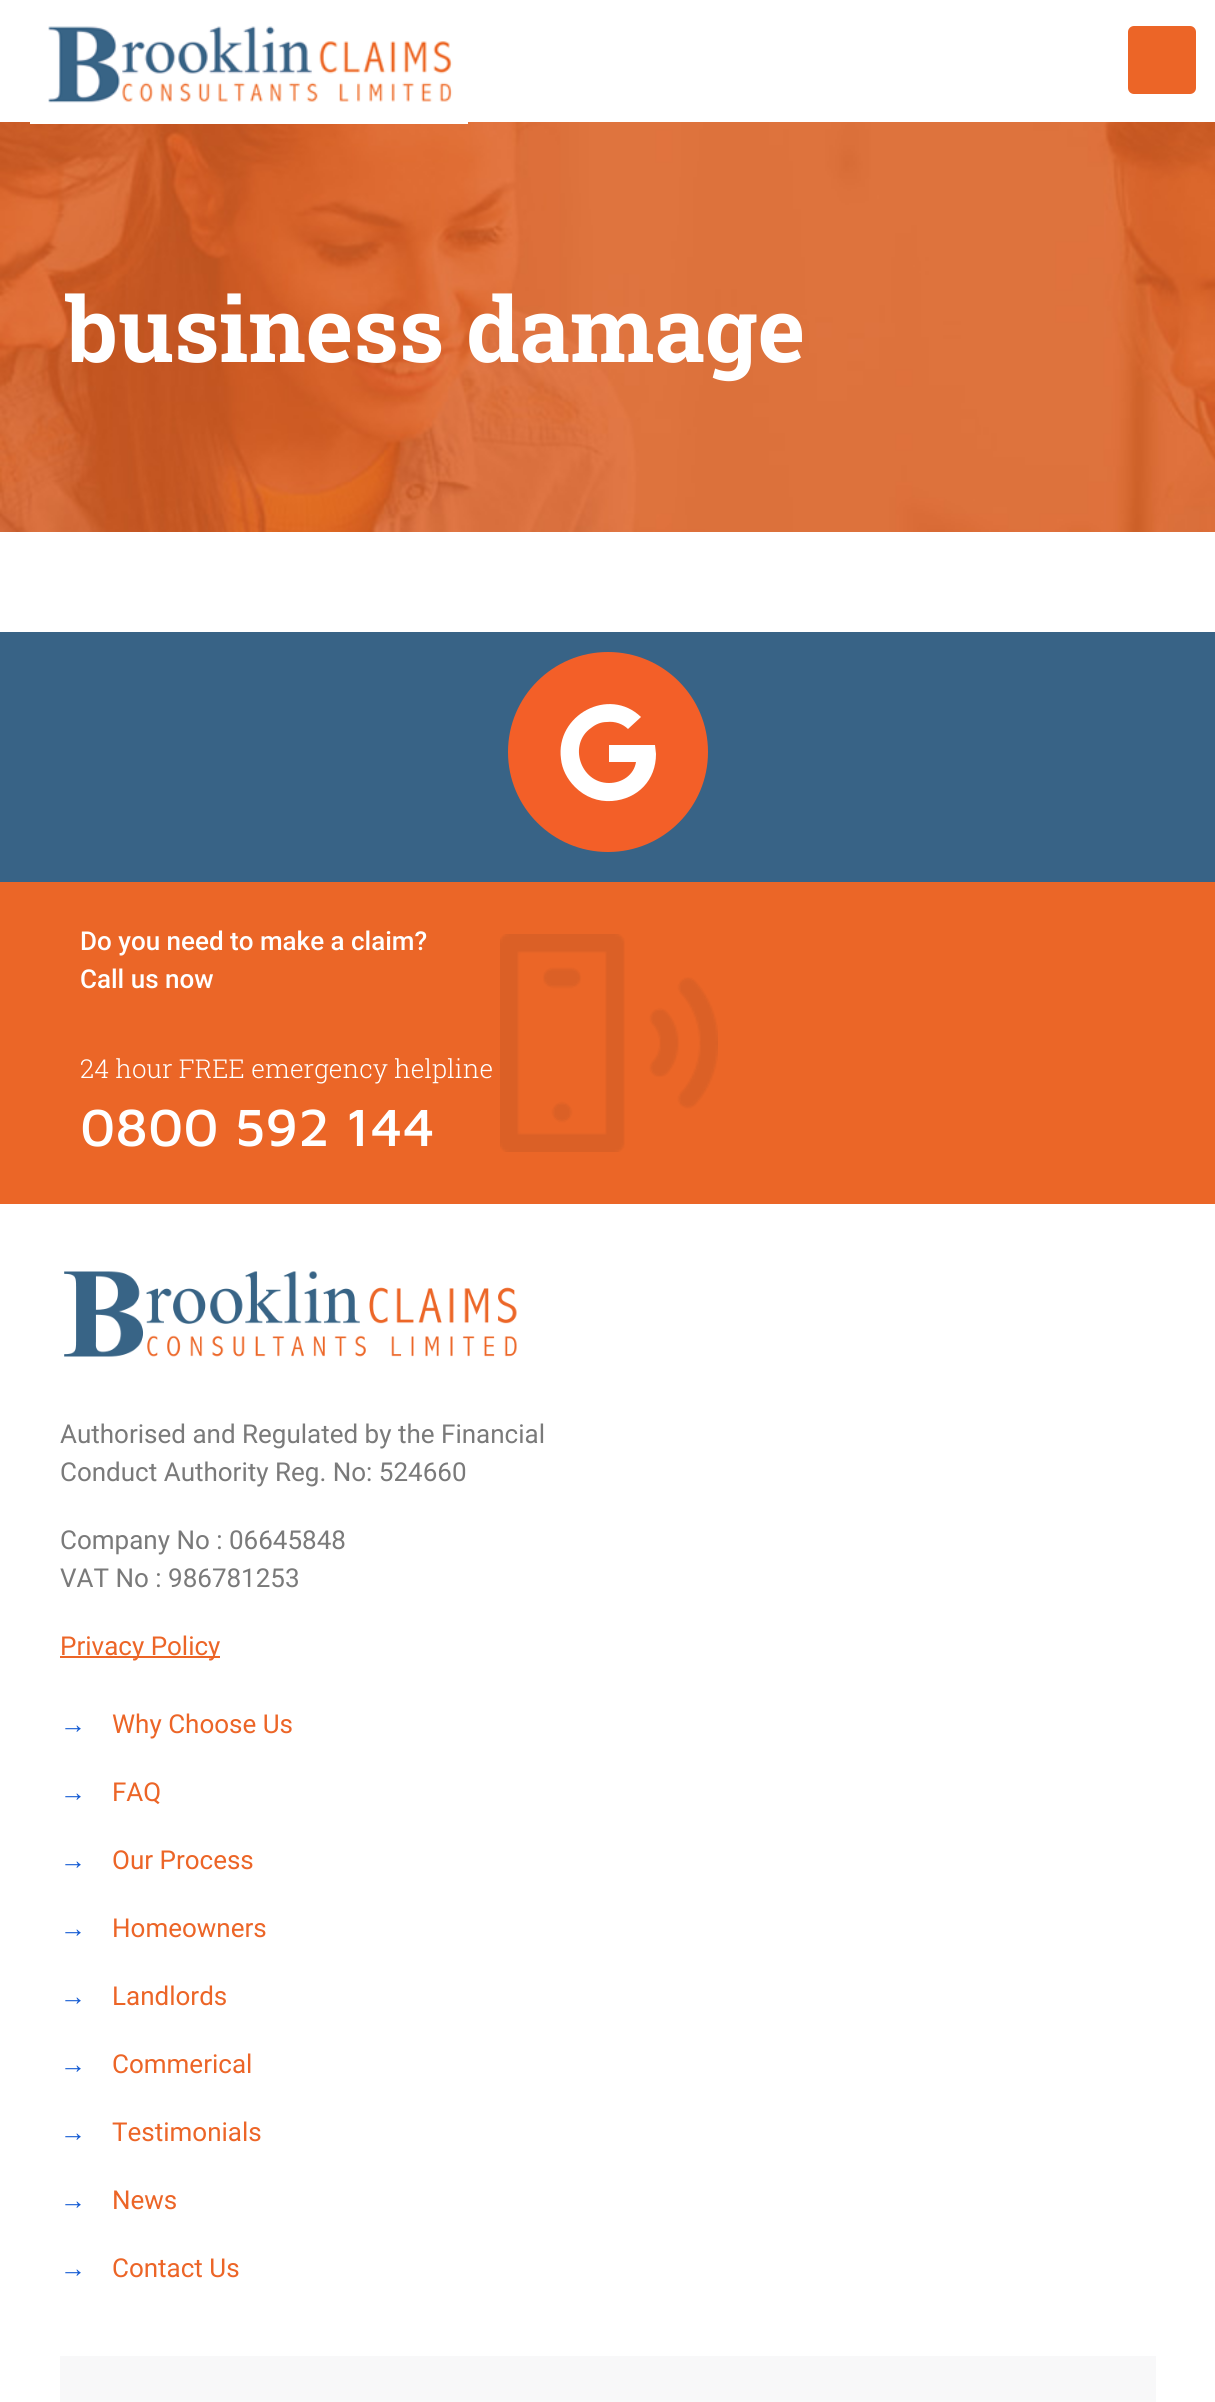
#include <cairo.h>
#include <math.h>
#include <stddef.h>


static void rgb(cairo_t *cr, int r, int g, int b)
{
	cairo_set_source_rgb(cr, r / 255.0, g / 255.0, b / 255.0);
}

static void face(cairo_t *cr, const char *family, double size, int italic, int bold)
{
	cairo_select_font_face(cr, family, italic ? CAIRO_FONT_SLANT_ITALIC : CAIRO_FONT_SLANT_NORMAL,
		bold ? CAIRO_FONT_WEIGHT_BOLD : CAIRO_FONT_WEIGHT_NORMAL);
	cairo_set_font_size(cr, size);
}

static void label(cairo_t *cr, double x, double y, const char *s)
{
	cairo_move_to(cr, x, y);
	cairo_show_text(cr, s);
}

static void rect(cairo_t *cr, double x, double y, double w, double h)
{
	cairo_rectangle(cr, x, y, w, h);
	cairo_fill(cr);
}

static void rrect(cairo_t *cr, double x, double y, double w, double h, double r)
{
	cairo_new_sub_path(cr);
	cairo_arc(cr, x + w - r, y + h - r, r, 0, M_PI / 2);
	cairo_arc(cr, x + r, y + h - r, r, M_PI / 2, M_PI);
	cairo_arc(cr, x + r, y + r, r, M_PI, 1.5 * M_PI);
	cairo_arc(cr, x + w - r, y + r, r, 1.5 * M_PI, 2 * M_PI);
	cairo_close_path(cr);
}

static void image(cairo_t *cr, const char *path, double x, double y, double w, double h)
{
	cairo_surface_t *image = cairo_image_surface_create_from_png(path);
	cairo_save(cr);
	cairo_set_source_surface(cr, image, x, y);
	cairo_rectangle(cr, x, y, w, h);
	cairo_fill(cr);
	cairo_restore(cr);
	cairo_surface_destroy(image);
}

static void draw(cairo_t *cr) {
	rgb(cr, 255, 255, 255);
	cairo_paint(cr);
	image(cr, "image0.png", 0, 122, 1215, 410);
	image(cr, "image1.png", 30, 26, 438, 98);
	rgb(cr, 236, 101, 39);
	rrect(cr, 1128, 26, 68, 68, 6);
	cairo_fill(cr);
	face(cr, "Roboto Slab", 90, 0, 1);
	rgb(cr, 255, 255, 255);
	label(cr, 66, 362, "business damage");
	rgb(cr, 56, 99, 134);
	rect(cr, 0, 632, 1215, 250);
	rgb(cr, 243, 95, 40);
	cairo_new_path(cr);
	cairo_arc(cr, 608, 752, 100, 0, 2 * M_PI);
	cairo_fill(cr);
	rgb(cr, 255, 255, 255);
	cairo_new_path(cr);
	cairo_move_to(cr, 656, 754);
	cairo_curve_to(cr, 656, 780, 638, 799, 612, 801);
	cairo_curve_to(cr, 598, 802, 585, 797, 575, 787);
	cairo_curve_to(cr, 567, 779, 562, 769, 561, 759);
	cairo_curve_to(cr, 555, 715, 609, 686, 641, 717);
	cairo_line_to(cr, 628, 729);
	cairo_curve_to(cr, 623, 724, 615, 721, 607, 722);
	cairo_curve_to(cr, 601, 722, 596, 724, 591, 728);
	cairo_curve_to(cr, 568, 744, 580, 783, 609, 783);
	cairo_curve_to(cr, 622, 783, 634, 775, 636, 762);
	cairo_line_to(cr, 609, 762);
	cairo_line_to(cr, 609, 745);
	cairo_line_to(cr, 655, 745);
	cairo_close_path(cr);
	cairo_fill(cr);
	rgb(cr, 235, 102, 39);
	rect(cr, 0, 882, 1215, 322);
	face(cr, "Roboto Medium", 26, 0, 0);
	rgb(cr, 255, 255, 255);
	label(cr, 80, 950, "Do you need to make a claim?");
	label(cr, 80, 988, "Call us now");
	face(cr, "Roboto Slab Light", 26, 0, 0);
	label(cr, 80, 1078, "24 hour FREE emergency helpline");
	face(cr, "Maven Pro Medium", 54, 0, 0);
	label(cr, 80, 1146, "0800 592 144");
	image(cr, "image2.png", 500, 934, 218, 218);
	image(cr, "image3.png", 64, 1271, 453, 86);
	face(cr, "Roboto", 26, 0, 0);
	rgb(cr, 122, 122, 122);
	label(cr, 60, 1443, "Authorised and Regulated by the Financial");
	label(cr, 60, 1481, "Conduct Authority Reg. No: 524660");
	label(cr, 60, 1549, "Company No : 06645848");
	label(cr, 60, 1587, "VAT No : 986781253");
	rgb(cr, 236, 101, 39);
	rect(cr, 60, 1656, 160, 2);
	label(cr, 60, 1655, "Privacy Policy");
	face(cr, "Liberation Sans", 26, 0, 0);
	rgb(cr, 18, 90, 211);
	label(cr, 60, 1733, "→");
	face(cr, "Roboto", 26, 0, 0);
	rgb(cr, 236, 101, 39);
	label(cr, 112, 1733, "Why Choose Us");
	face(cr, "Liberation Sans", 26, 0, 0);
	rgb(cr, 18, 90, 211);
	label(cr, 60, 1801, "→");
	face(cr, "Roboto", 26, 0, 0);
	rgb(cr, 236, 101, 39);
	label(cr, 112, 1801, "FAQ");
	face(cr, "Liberation Sans", 26, 0, 0);
	rgb(cr, 18, 90, 211);
	label(cr, 60, 1869, "→");
	face(cr, "Roboto", 26, 0, 0);
	rgb(cr, 236, 101, 39);
	label(cr, 112, 1869, "Our Process");
	face(cr, "Liberation Sans", 26, 0, 0);
	rgb(cr, 18, 90, 211);
	label(cr, 60, 1937, "→");
	face(cr, "Roboto", 26, 0, 0);
	rgb(cr, 236, 101, 39);
	label(cr, 112, 1937, "Homeowners");
	face(cr, "Liberation Sans", 26, 0, 0);
	rgb(cr, 18, 90, 211);
	label(cr, 60, 2005, "→");
	face(cr, "Roboto", 26, 0, 0);
	rgb(cr, 236, 101, 39);
	label(cr, 112, 2005, "Landlords");
	face(cr, "Liberation Sans", 26, 0, 0);
	rgb(cr, 18, 90, 211);
	label(cr, 60, 2073, "→");
	face(cr, "Roboto", 26, 0, 0);
	rgb(cr, 236, 101, 39);
	label(cr, 112, 2073, "Commerical");
	face(cr, "Liberation Sans", 26, 0, 0);
	rgb(cr, 18, 90, 211);
	label(cr, 60, 2141, "→");
	face(cr, "Roboto", 26, 0, 0);
	rgb(cr, 236, 101, 39);
	label(cr, 112, 2141, "Testimonials");
	face(cr, "Liberation Sans", 26, 0, 0);
	rgb(cr, 18, 90, 211);
	label(cr, 60, 2209, "→");
	face(cr, "Roboto", 26, 0, 0);
	rgb(cr, 236, 101, 39);
	label(cr, 112, 2209, "News");
	face(cr, "Liberation Sans", 26, 0, 0);
	rgb(cr, 18, 90, 211);
	label(cr, 60, 2277, "→");
	face(cr, "Roboto", 26, 0, 0);
	rgb(cr, 236, 101, 39);
	label(cr, 112, 2277, "Contact Us");
	rgb(cr, 248, 248, 249);
	rect(cr, 60, 2356, 1096, 46);
}

int main(void) {
	cairo_surface_t *surface = cairo_image_surface_create(CAIRO_FORMAT_RGB24, 1215, 2402);
	cairo_t *cr = cairo_create(surface);
	cairo_font_options_t *options = cairo_font_options_create();
	cairo_font_options_set_hint_metrics(options, CAIRO_HINT_METRICS_OFF);
	cairo_font_options_set_hint_style(options, CAIRO_HINT_STYLE_NONE);
	cairo_set_font_options(cr, options);
	cairo_set_miter_limit(cr, 4);
	draw(cr);
	cairo_surface_write_to_png(surface, "render.png");
	cairo_font_options_destroy(options);
	cairo_destroy(cr);
	cairo_surface_destroy(surface);
	return 0;
}
